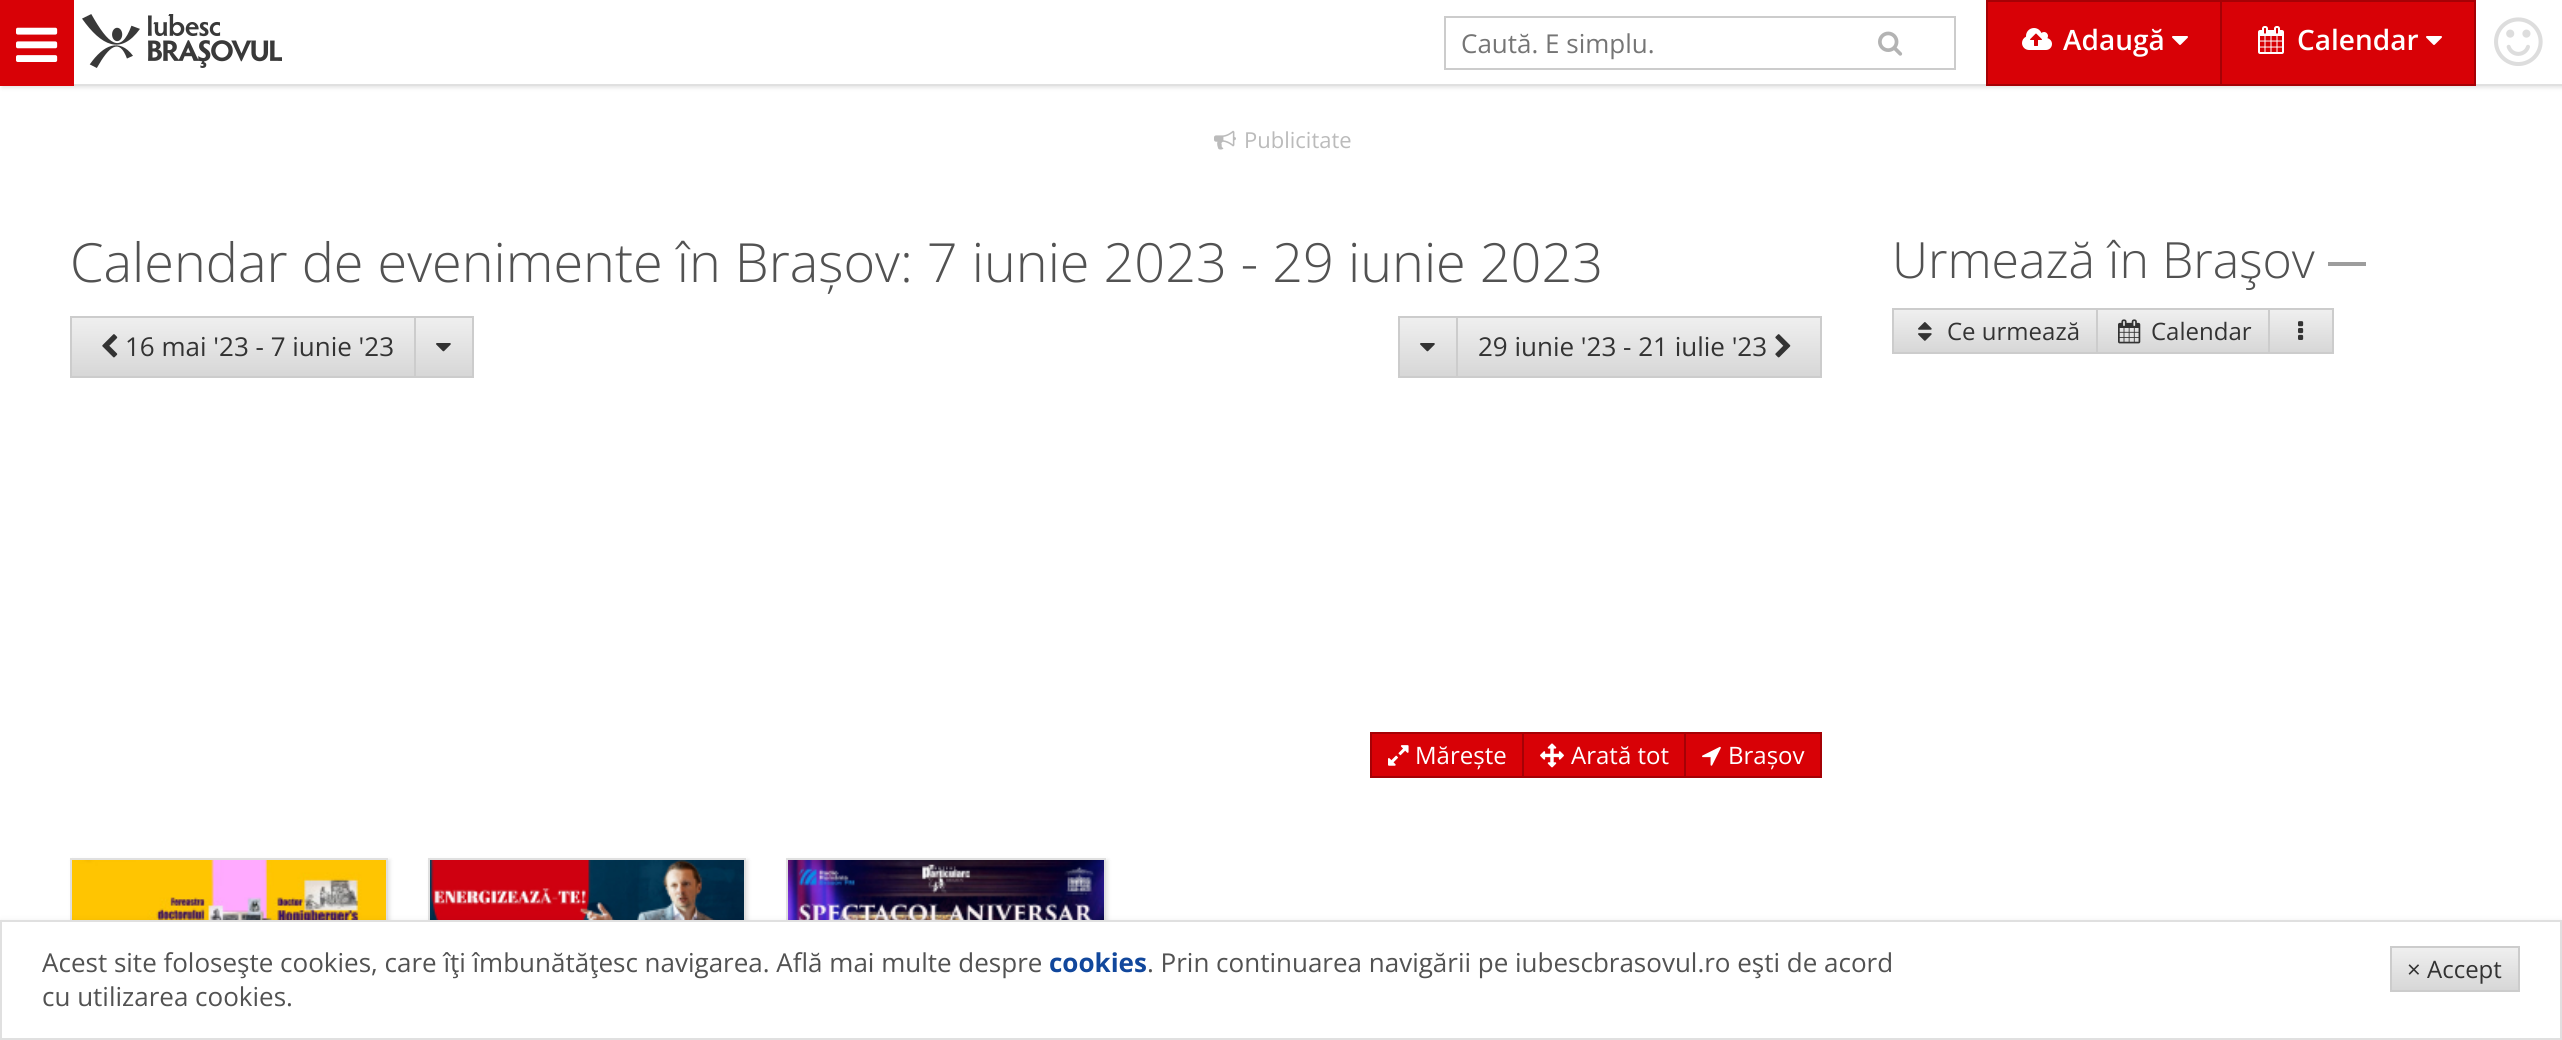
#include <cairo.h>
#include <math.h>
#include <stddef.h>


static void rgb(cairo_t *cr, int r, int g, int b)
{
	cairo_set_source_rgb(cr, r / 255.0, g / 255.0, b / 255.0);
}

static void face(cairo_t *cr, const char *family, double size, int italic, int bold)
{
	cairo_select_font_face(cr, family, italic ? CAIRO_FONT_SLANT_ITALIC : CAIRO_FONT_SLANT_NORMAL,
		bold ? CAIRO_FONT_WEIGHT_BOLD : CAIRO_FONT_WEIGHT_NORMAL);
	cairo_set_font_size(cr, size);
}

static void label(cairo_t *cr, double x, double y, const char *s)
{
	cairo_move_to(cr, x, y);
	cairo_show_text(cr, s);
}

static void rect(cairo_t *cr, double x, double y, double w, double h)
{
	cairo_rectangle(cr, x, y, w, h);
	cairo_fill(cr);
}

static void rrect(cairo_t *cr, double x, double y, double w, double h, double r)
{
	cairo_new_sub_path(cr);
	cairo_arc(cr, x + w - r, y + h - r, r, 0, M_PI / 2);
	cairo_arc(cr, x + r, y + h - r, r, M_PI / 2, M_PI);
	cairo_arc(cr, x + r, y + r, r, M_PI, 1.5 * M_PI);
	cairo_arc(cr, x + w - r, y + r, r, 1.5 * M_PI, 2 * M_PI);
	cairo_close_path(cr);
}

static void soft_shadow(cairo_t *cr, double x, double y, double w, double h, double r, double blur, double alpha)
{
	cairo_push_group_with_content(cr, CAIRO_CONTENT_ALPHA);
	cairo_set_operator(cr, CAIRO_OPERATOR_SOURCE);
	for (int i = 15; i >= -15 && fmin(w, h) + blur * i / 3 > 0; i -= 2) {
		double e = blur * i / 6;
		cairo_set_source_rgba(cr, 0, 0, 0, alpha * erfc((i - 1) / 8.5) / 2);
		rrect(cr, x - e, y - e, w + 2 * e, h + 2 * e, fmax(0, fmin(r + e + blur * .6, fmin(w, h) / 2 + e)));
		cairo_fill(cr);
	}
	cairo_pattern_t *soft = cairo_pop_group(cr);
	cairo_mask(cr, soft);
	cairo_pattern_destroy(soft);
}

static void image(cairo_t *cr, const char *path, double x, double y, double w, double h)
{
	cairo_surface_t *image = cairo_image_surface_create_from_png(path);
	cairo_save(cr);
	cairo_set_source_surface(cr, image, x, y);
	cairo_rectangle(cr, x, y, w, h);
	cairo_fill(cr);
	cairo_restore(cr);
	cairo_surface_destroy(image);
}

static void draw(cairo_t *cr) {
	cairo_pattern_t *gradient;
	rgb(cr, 255, 255, 255);
	cairo_paint(cr);
	rgb(cr, 0, 0, 0);
	soft_shadow(cr, 2, 2, 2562, 86, 0, 2, 0.1);
	rgb(cr, 255, 255, 255);
	rect(cr, 74, 0, 2488, 84);
	rgb(cr, 224, 224, 224);
	rect(cr, 74, 84, 2488, 2);
	rgb(cr, 216, 1, 6);
	rect(cr, 0, 0, 74, 86);
	image(cr, "image0.png", 16, 27, 42, 35);
	image(cr, "image1.png", 82, 14, 58, 54);
	image(cr, "image2.png", 148, 14, 134, 54);
	rgb(cr, 204, 204, 204);
	rect(cr, 1444, 16, 512, 2);
	rect(cr, 1444, 68, 384, 2);
	rect(cr, 1444, 16, 2, 54);
	face(cr, "Open Sans", 26, 0, 0);
	rgb(cr, 117, 117, 117);
	label(cr, 1461, 53, "Caută. E simplu.");
	rgb(cr, 204, 204, 204);
	rect(cr, 1954, 16, 2, 54);
	rect(cr, 1828, 68, 128, 2);
	image(cr, "image3.png", 1878, 31, 25, 25);
	rgb(cr, 216, 1, 6);
	cairo_rectangle(cr, 1987, 1, 234, 84);
	cairo_fill_preserve(cr);
	rgb(cr, 165, 1, 5);
	cairo_stroke(cr);
	image(cr, "image4.png", 2022, 28, 30, 22);
	face(cr, "Open Sans SemiBold", 28, 0, 0);
	rgb(cr, 255, 255, 255);
	label(cr, 2063, 50, "Adaugă");
	image(cr, "image5.png", 2172, 36, 16, 9);
	rgb(cr, 216, 1, 6);
	rect(cr, 2222, 2, 252, 82);
	rgb(cr, 165, 1, 5);
	rect(cr, 2222, 0, 254, 2);
	rect(cr, 2474, 0, 2, 86);
	rect(cr, 2222, 84, 254, 2);
	image(cr, "image6.png", 2258, 26, 26, 28);
	rgb(cr, 255, 255, 255);
	label(cr, 2297, 50, "Calendar");
	image(cr, "image5.png", 2426, 36, 16, 9);
	image(cr, "image7.png", 2494, 17, 49, 49);
	image(cr, "image8.png", 1214, 130, 22, 20);
	face(cr, "Open Sans", 22, 0, 0);
	rgb(cr, 187, 187, 187);
	label(cr, 1244, 148, "Publicitate");
	face(cr, "Open Sans Light", 54, 0, 0);
	rgb(cr, 82, 82, 82);
	label(cr, 70, 282, "Calendar de evenimente în Brașov: 7 iunie 2023 - 29 iunie 2023");
	gradient = cairo_pattern_create_linear(243, 318, 243, 376);
	cairo_pattern_add_color_stop_rgba(gradient, 0, 0.937, 0.937, 0.937, 1);
	cairo_pattern_add_color_stop_rgba(gradient, 1, 0.843, 0.843, 0.843, 1);
	cairo_set_source(cr, gradient);
	cairo_pattern_destroy(gradient);
	rect(cr, 72, 318, 342, 58);
	cairo_rectangle(cr, 71, 317, 344, 60);
	rgb(cr, 204, 204, 204);
	cairo_stroke(cr);
	image(cr, "image9.png", 102, 334, 16, 24);
	face(cr, "Open Sans", 26, 0, 0);
	rgb(cr, 51, 51, 51);
	label(cr, 125, 356, "16 mai '23 - 7 iunie '23");
	gradient = cairo_pattern_create_linear(444, 318, 444, 376);
	cairo_pattern_add_color_stop_rgba(gradient, 0, 0.937, 0.937, 0.937, 1);
	cairo_pattern_add_color_stop_rgba(gradient, 1, 0.843, 0.843, 0.843, 1);
	cairo_set_source(cr, gradient);
	cairo_pattern_destroy(gradient);
	rect(cr, 416, 318, 56, 58);
	rgb(cr, 204, 204, 204);
	rect(cr, 416, 316, 58, 2);
	rect(cr, 472, 316, 2, 62);
	rect(cr, 416, 376, 58, 2);
	image(cr, "image10.png", 436, 343, 15, 9);
	gradient = cairo_pattern_create_linear(1428, 318, 1428, 376);
	cairo_pattern_add_color_stop_rgba(gradient, 0, 0.937, 0.937, 0.937, 1);
	cairo_pattern_add_color_stop_rgba(gradient, 1, 0.843, 0.843, 0.843, 1);
	cairo_set_source(cr, gradient);
	cairo_pattern_destroy(gradient);
	rect(cr, 1400, 318, 56, 58);
	cairo_rectangle(cr, 1399, 317, 58, 60);
	rgb(cr, 204, 204, 204);
	cairo_stroke(cr);
	image(cr, "image10.png", 1420, 343, 15, 9);
	gradient = cairo_pattern_create_linear(1639, 318, 1639, 376);
	cairo_pattern_add_color_stop_rgba(gradient, 0, 0.937, 0.937, 0.937, 1);
	cairo_pattern_add_color_stop_rgba(gradient, 1, 0.843, 0.843, 0.843, 1);
	cairo_set_source(cr, gradient);
	cairo_pattern_destroy(gradient);
	rect(cr, 1458, 318, 362, 58);
	rgb(cr, 204, 204, 204);
	rect(cr, 1458, 316, 364, 2);
	rect(cr, 1820, 316, 2, 62);
	rect(cr, 1458, 376, 364, 2);
	rgb(cr, 51, 51, 51);
	label(cr, 1478, 356, "29 iunie '23 - 21 iulie '23");
	image(cr, "image11.png", 1775, 334, 16, 24);
	rgb(cr, 216, 1, 6);
	cairo_rectangle(cr, 1371, 733, 152, 44);
	cairo_fill_preserve(cr);
	rgb(cr, 165, 1, 5);
	cairo_stroke(cr);
	image(cr, "image12.png", 1388, 745, 21, 21);
	face(cr, "Open Sans", 24, 0, 0);
	rgb(cr, 255, 255, 255);
	label(cr, 1415, 764, "Mărește");
	rgb(cr, 216, 1, 6);
	rect(cr, 1524, 734, 160, 42);
	rgb(cr, 165, 1, 5);
	rect(cr, 1524, 732, 298, 2);
	rect(cr, 1684, 732, 2, 46);
	rect(cr, 1524, 776, 162, 2);
	image(cr, "image13.png", 1540, 743, 24, 25);
	rgb(cr, 255, 255, 255);
	label(cr, 1571, 764, "Arată tot");
	rgb(cr, 216, 1, 6);
	rect(cr, 1686, 734, 134, 42);
	rgb(cr, 165, 1, 5);
	rect(cr, 1820, 732, 2, 46);
	rect(cr, 1686, 776, 136, 2);
	image(cr, "image14.png", 1702, 746, 19, 20);
	rgb(cr, 255, 255, 255);
	label(cr, 1728, 764, "Brașov");
	rgb(cr, 0, 0, 0);
	soft_shadow(cr, 72, 860, 318, 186, 0, 2, 0.1);
	cairo_rectangle(cr, 71, 859, 316, 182);
	rgb(cr, 224, 224, 224);
	cairo_stroke(cr);
	image(cr, "image15.png", 72, 860, 314, 60);
	rgb(cr, 0, 0, 0);
	soft_shadow(cr, 430, 860, 318, 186, 0, 2, 0.1);
	cairo_rectangle(cr, 429, 859, 316, 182);
	rgb(cr, 224, 224, 224);
	cairo_stroke(cr);
	image(cr, "image16.png", 430, 860, 314, 60);
	rgb(cr, 0, 0, 0);
	soft_shadow(cr, 788, 860, 320, 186, 0, 2, 0.1);
	cairo_rectangle(cr, 787, 859, 318, 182);
	rgb(cr, 224, 224, 224);
	cairo_stroke(cr);
	image(cr, "image17.png", 788, 860, 316, 60);
	face(cr, "Open Sans Light", 50, 0, 0);
	rgb(cr, 82, 82, 82);
	label(cr, 1892, 278, "Urmează în Braşov");
	rgb(cr, 157, 157, 157);
	rect(cr, 2328, 262, 38, 4);
	gradient = cairo_pattern_create_linear(1995, 310, 1995, 352);
	cairo_pattern_add_color_stop_rgba(gradient, 0, 0.937, 0.937, 0.937, 1);
	cairo_pattern_add_color_stop_rgba(gradient, 1, 0.843, 0.843, 0.843, 1);
	cairo_set_source(cr, gradient);
	cairo_pattern_destroy(gradient);
	rect(cr, 1894, 310, 202, 42);
	cairo_rectangle(cr, 1893, 309, 204, 44);
	rgb(cr, 204, 204, 204);
	cairo_stroke(cr);
	image(cr, "image18.png", 1918, 322, 14, 19);
	face(cr, "Open Sans", 24, 0, 0);
	rgb(cr, 51, 51, 51);
	label(cr, 1947, 340, "Ce urmează");
	gradient = cairo_pattern_create_linear(2183, 310, 2183, 352);
	cairo_pattern_add_color_stop_rgba(gradient, 0, 0.937, 0.937, 0.937, 1);
	cairo_pattern_add_color_stop_rgba(gradient, 1, 0.843, 0.843, 0.843, 1);
	cairo_set_source(cr, gradient);
	cairo_pattern_destroy(gradient);
	rect(cr, 2098, 310, 170, 42);
	rgb(cr, 204, 204, 204);
	rect(cr, 2098, 308, 236, 2);
	rect(cr, 2268, 308, 2, 46);
	rect(cr, 2098, 352, 172, 2);
	image(cr, "image19.png", 2118, 319, 23, 25);
	rgb(cr, 51, 51, 51);
	label(cr, 2151, 340, "Calendar");
	gradient = cairo_pattern_create_linear(2301, 310, 2301, 352);
	cairo_pattern_add_color_stop_rgba(gradient, 0, 0.937, 0.937, 0.937, 1);
	cairo_pattern_add_color_stop_rgba(gradient, 1, 0.843, 0.843, 0.843, 1);
	cairo_set_source(cr, gradient);
	cairo_pattern_destroy(gradient);
	rect(cr, 2270, 310, 62, 42);
	rgb(cr, 204, 204, 204);
	rect(cr, 2332, 308, 2, 46);
	rect(cr, 2270, 352, 64, 2);
	image(cr, "image20.png", 2298, 321, 6, 19);
	rgb(cr, 0, 0, 0);
	soft_shadow(cr, 0, 924, 2562, 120, 0, 4, 0.2);
	rgb(cr, 255, 255, 255);
	cairo_rectangle(cr, 1, 921, 2560, 118);
	cairo_fill_preserve(cr);
	rgb(cr, 224, 224, 224);
	cairo_stroke(cr);
	face(cr, "Open Sans", 26, 0, 0);
	rgb(cr, 82, 82, 82);
	label(cr, 42, 972, "Acest site foloseşte cookies, care îţi îmbunătăţesc navigarea. Află mai multe despre");
	face(cr, "Open Sans", 26, 0, 1);
	rgb(cr, 17, 71, 156);
	label(cr, 1049, 972, "cookies");
	face(cr, "Open Sans", 26, 0, 0);
	rgb(cr, 82, 82, 82);
	label(cr, 1147, 972, ". Prin continuarea navigării pe iubescbrasovul.ro eşti de acord");
	label(cr, 42, 1006, "cu utilizarea cookies.");
	gradient = cairo_pattern_create_linear(2455, 948, 2455, 990);
	cairo_pattern_add_color_stop_rgba(gradient, 0, 0.937, 0.937, 0.937, 1);
	cairo_pattern_add_color_stop_rgba(gradient, 1, 0.843, 0.843, 0.843, 1);
	cairo_set_source(cr, gradient);
	cairo_pattern_destroy(gradient);
	rect(cr, 2392, 948, 126, 42);
	cairo_rectangle(cr, 2391, 947, 128, 44);
	rgb(cr, 204, 204, 204);
	cairo_stroke(cr);
	face(cr, "Open Sans", 24, 0, 0);
	rgb(cr, 51, 51, 51);
	label(cr, 2407, 978, "× Accept");
}

int main(void) {
	cairo_surface_t *surface = cairo_image_surface_create(CAIRO_FORMAT_RGB24, 2562, 1040);
	cairo_t *cr = cairo_create(surface);
	cairo_font_options_t *options = cairo_font_options_create();
	cairo_font_options_set_hint_metrics(options, CAIRO_HINT_METRICS_OFF);
	cairo_font_options_set_hint_style(options, CAIRO_HINT_STYLE_NONE);
	cairo_set_font_options(cr, options);
	cairo_set_miter_limit(cr, 4);
	draw(cr);
	cairo_surface_write_to_png(surface, "render.png");
	cairo_font_options_destroy(options);
	cairo_destroy(cr);
	cairo_surface_destroy(surface);
	return 0;
}
